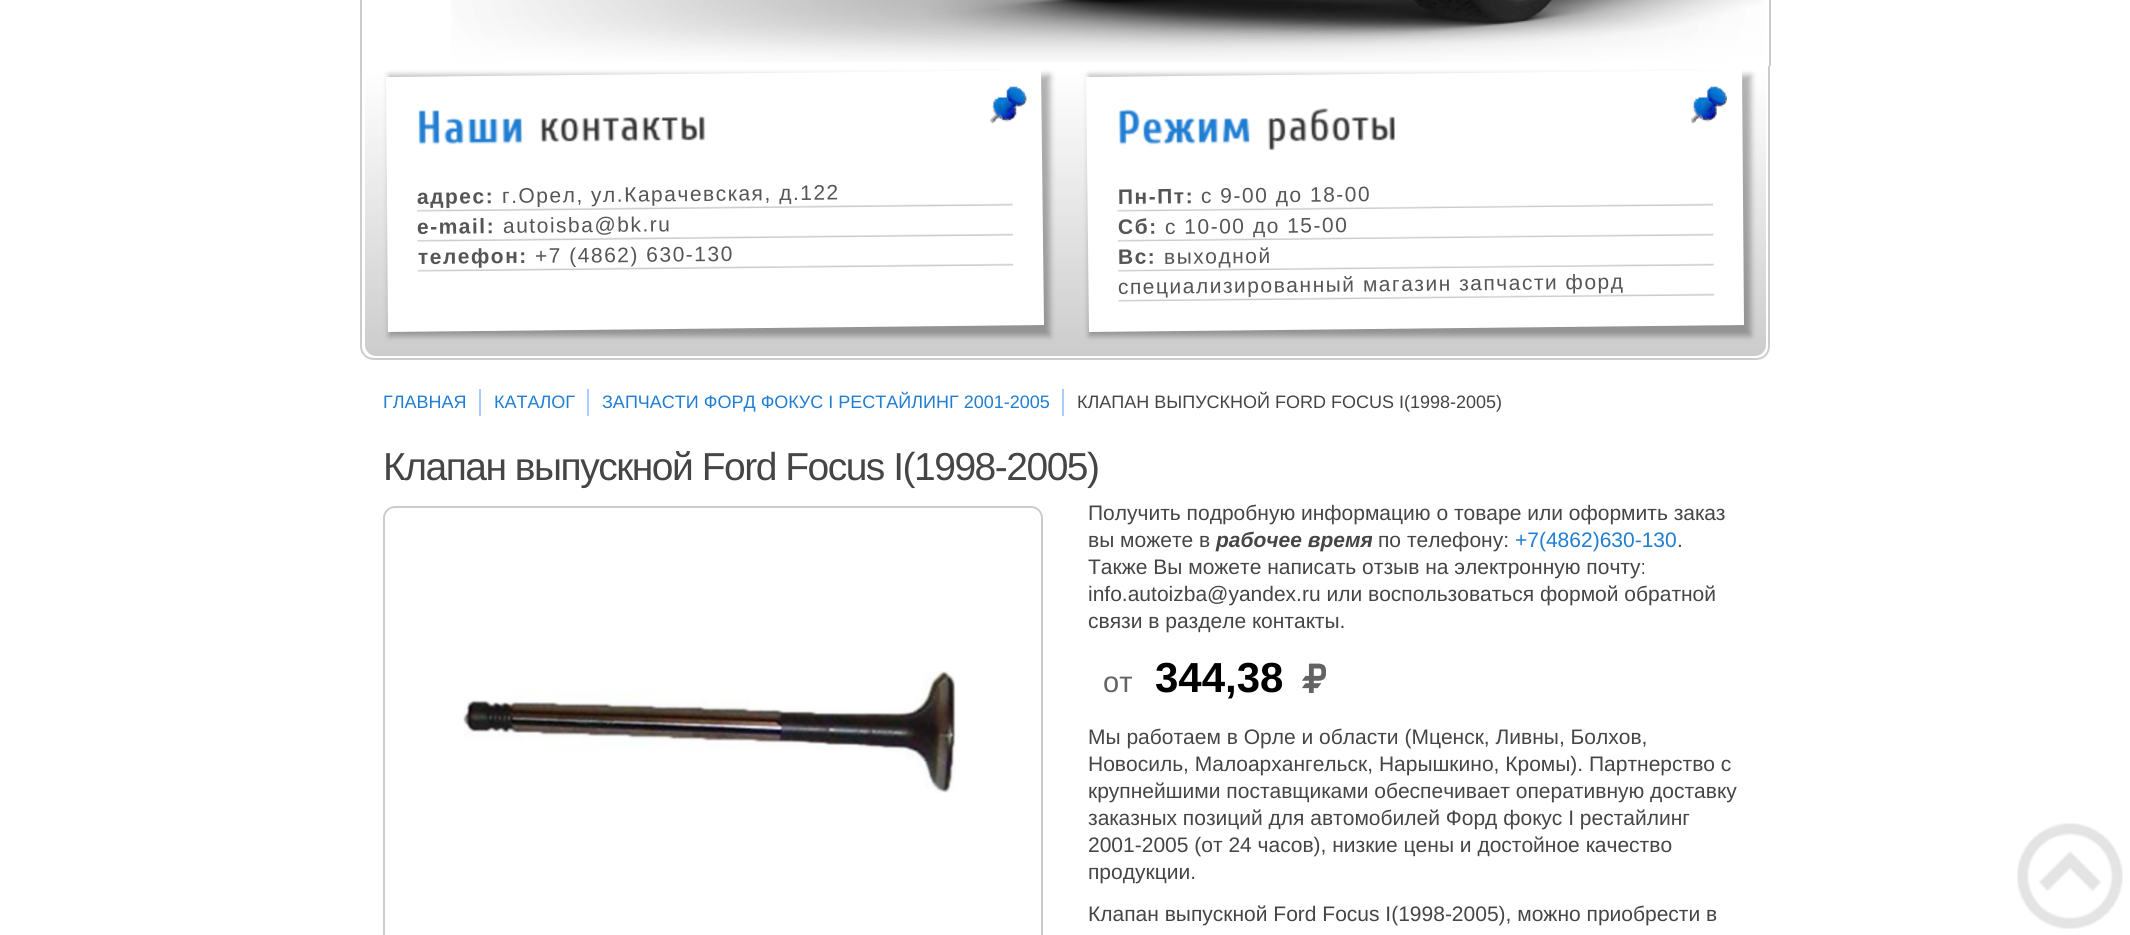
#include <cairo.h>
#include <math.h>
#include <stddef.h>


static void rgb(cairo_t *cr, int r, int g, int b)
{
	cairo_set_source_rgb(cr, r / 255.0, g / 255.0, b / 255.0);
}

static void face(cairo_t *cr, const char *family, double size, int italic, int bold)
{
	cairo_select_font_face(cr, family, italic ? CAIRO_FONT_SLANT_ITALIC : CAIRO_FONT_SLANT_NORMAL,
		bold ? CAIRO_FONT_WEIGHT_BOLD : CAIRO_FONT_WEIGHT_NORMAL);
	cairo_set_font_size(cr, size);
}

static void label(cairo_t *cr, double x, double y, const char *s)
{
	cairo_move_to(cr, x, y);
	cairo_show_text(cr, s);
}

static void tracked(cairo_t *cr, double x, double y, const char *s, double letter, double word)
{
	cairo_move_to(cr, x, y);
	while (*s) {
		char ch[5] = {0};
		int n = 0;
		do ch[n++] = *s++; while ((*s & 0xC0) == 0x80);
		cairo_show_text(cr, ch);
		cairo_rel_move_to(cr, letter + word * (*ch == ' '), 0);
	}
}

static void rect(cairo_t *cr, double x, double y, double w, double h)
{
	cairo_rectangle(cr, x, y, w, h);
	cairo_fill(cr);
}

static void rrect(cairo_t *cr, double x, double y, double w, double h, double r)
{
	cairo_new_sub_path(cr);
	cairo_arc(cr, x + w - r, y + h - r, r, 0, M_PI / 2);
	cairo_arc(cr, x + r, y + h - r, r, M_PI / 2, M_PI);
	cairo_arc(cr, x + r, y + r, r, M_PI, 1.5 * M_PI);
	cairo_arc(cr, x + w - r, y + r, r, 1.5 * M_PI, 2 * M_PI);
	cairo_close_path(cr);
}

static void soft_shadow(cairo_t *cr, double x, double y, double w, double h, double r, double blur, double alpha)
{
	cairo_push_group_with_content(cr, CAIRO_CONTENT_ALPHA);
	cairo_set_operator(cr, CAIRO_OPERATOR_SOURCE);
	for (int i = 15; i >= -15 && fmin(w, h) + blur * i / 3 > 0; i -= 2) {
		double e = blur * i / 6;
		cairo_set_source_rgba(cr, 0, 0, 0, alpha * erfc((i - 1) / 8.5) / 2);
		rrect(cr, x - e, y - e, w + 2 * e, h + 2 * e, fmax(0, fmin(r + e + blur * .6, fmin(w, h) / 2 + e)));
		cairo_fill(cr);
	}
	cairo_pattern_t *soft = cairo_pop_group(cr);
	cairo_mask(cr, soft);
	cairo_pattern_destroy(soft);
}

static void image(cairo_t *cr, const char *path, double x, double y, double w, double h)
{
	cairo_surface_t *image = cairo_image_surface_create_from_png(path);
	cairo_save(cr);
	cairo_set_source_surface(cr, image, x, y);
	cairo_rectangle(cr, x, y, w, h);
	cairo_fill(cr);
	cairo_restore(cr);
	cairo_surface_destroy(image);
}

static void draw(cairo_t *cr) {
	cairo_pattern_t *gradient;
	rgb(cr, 255, 255, 255);
	cairo_paint(cr);
	rgb(cr, 204, 204, 204);
	rect(cr, 1769, 0, 2, 66);
	rect(cr, 360, 0, 2, 66);
	image(cr, "image0.png", 451, 0, 1314, 62);
	cairo_set_fill_rule(cr, CAIRO_FILL_RULE_EVEN_ODD);
	cairo_new_path(cr);
	cairo_move_to(cr, 360, 66);
	cairo_line_to(cr, 1770, 66);
	cairo_line_to(cr, 1770, 346);
	cairo_curve_to(cr, 1770, 354, 1764, 360, 1756, 360);
	cairo_line_to(cr, 374, 360);
	cairo_curve_to(cr, 366, 360, 360, 354, 360, 346);
	cairo_close_path(cr);
	cairo_move_to(cr, 362, 66);
	cairo_line_to(cr, 1768, 66);
	cairo_line_to(cr, 1768, 346);
	cairo_curve_to(cr, 1768, 353, 1763, 358, 1756, 358);
	cairo_line_to(cr, 374, 358);
	cairo_curve_to(cr, 367, 358, 362, 353, 362, 346);
	cairo_close_path(cr);
	cairo_fill(cr);
	gradient = cairo_pattern_create_linear(1065, 69, 1065, 356);
	cairo_pattern_add_color_stop_rgba(gradient, 0, 1, 1, 1, 1);
	cairo_pattern_add_color_stop_rgba(gradient, 1, 0.8, 0.8, 0.8, 1);
	cairo_set_source(cr, gradient);
	cairo_pattern_destroy(gradient);
	cairo_new_path(cr);
	cairo_move_to(cr, 365, 69);
	cairo_line_to(cr, 1766, 69);
	cairo_line_to(cr, 1766, 345);
	cairo_curve_to(cr, 1766, 351, 1761, 356, 1755, 356);
	cairo_line_to(cr, 376, 356);
	cairo_curve_to(cr, 370, 356, 365, 351, 365, 345);
	cairo_close_path(cr);
	cairo_fill(cr);
	rgb(cr, 0, 0, 0);
	soft_shadow(cr, 389, 75, 661, 261, 0, 3, 0.3);
	rgb(cr, 255, 255, 255);
	cairo_set_fill_rule(cr, CAIRO_FILL_RULE_WINDING);
	cairo_new_path(cr);
	cairo_move_to(cr, 386, 77);
	cairo_line_to(cr, 1041, 70);
	cairo_line_to(cr, 1044, 325);
	cairo_line_to(cr, 388, 332);
	cairo_close_path(cr);
	cairo_fill(cr);
	image(cr, "image1.png", 990, 86, 37, 37);
	image(cr, "image2.png", 418, 110, 105, 35);
	image(cr, "image3.png", 540, 116, 166, 27);
	image(cr, "image4.png", 417, 203, 596, 9);
	face(cr, "Liberation Sans", 21, 0, 1);
	rgb(cr, 85, 85, 85);
	cairo_save(cr);
	cairo_translate(cr, 417, 204);
	cairo_rotate(cr, -0.6 * M_PI / 180);
	tracked(cr, 0, 0, "адрес:", 1.5, 0);
	cairo_restore(cr);
	face(cr, "Liberation Sans", 21, 0, 0);
	cairo_save(cr);
	cairo_translate(cr, 502, 203);
	cairo_rotate(cr, -0.6 * M_PI / 180);
	tracked(cr, 0, 0, "г.Орел, ул.Карачевская, д.122", 1.5, 0);
	cairo_restore(cr);
	image(cr, "image5.png", 417, 233, 596, 9);
	face(cr, "Liberation Sans", 21, 0, 1);
	cairo_save(cr);
	cairo_translate(cr, 417, 234);
	cairo_rotate(cr, -0.6 * M_PI / 180);
	tracked(cr, 0, 0, "e-mail:", 1.5, 0);
	cairo_restore(cr);
	face(cr, "Liberation Sans", 21, 0, 0);
	cairo_save(cr);
	cairo_translate(cr, 503, 233);
	cairo_rotate(cr, -0.6 * M_PI / 180);
	tracked(cr, 0, 0, "autoisba@bk.ru", 1.5, 0);
	cairo_restore(cr);
	image(cr, "image6.png", 417, 263, 597, 9);
	face(cr, "Liberation Sans", 21, 0, 1);
	cairo_save(cr);
	cairo_translate(cr, 418, 264);
	cairo_rotate(cr, -0.6 * M_PI / 180);
	tracked(cr, 0, 0, "телефон:", 1.5, 0);
	cairo_restore(cr);
	face(cr, "Liberation Sans", 21, 0, 0);
	cairo_save(cr);
	cairo_translate(cr, 535, 263);
	cairo_rotate(cr, -0.6 * M_PI / 180);
	tracked(cr, 0, 0, "+7 (4862) 630-130", 1.5, 0);
	cairo_restore(cr);
	rgb(cr, 0, 0, 0);
	soft_shadow(cr, 1089, 75, 662, 261, 0, 3, 0.3);
	rgb(cr, 255, 255, 255);
	cairo_new_path(cr);
	cairo_move_to(cr, 1086, 77);
	cairo_line_to(cr, 1742, 70);
	cairo_line_to(cr, 1744, 325);
	cairo_line_to(cr, 1089, 332);
	cairo_close_path(cr);
	cairo_fill(cr);
	image(cr, "image7.png", 1691, 86, 36, 37);
	image(cr, "image8.png", 1118, 109, 133, 36);
	image(cr, "image9.png", 1267, 108, 128, 42);
	image(cr, "image10.png", 1117, 203, 596, 9);
	face(cr, "Liberation Sans", 21, 0, 1);
	rgb(cr, 85, 85, 85);
	cairo_save(cr);
	cairo_translate(cr, 1118, 204);
	cairo_rotate(cr, -0.6 * M_PI / 180);
	tracked(cr, 0, 0, "Пн-Пт:", 1.5, 0);
	cairo_restore(cr);
	face(cr, "Liberation Sans", 21, 0, 0);
	cairo_save(cr);
	cairo_translate(cr, 1201, 203);
	cairo_rotate(cr, -0.6 * M_PI / 180);
	tracked(cr, 0, 0, "с 9-00 до 18-00", 1.5, 0);
	cairo_restore(cr);
	image(cr, "image11.png", 1117, 233, 597, 9);
	face(cr, "Liberation Sans", 21, 0, 1);
	cairo_save(cr);
	cairo_translate(cr, 1118, 234);
	cairo_rotate(cr, -0.6 * M_PI / 180);
	tracked(cr, 0, 0, "Сб:", 1.5, 0);
	cairo_restore(cr);
	face(cr, "Liberation Sans", 21, 0, 0);
	cairo_save(cr);
	cairo_translate(cr, 1165, 234);
	cairo_rotate(cr, -0.6 * M_PI / 180);
	tracked(cr, 0, 0, "с 10-00 до 15-00", 1.5, 0);
	cairo_restore(cr);
	image(cr, "image12.png", 1118, 263, 596, 9);
	face(cr, "Liberation Sans", 21, 0, 1);
	cairo_save(cr);
	cairo_translate(cr, 1118, 264);
	cairo_rotate(cr, -0.6 * M_PI / 180);
	tracked(cr, 0, 0, "Вс:", 1.5, 0);
	cairo_restore(cr);
	face(cr, "Liberation Sans", 21, 0, 0);
	cairo_save(cr);
	cairo_translate(cr, 1164, 264);
	cairo_rotate(cr, -0.6 * M_PI / 180);
	tracked(cr, 0, 0, "выходной", 1.5, 0);
	cairo_restore(cr);
	image(cr, "image13.png", 1118, 293, 596, 9);
	cairo_save(cr);
	cairo_translate(cr, 1118, 294);
	cairo_rotate(cr, -0.6 * M_PI / 180);
	tracked(cr, 0, 0, "специализированный магазин запчасти форд", 1.5, 0);
	cairo_restore(cr);
	face(cr, "Liberation Sans", 18, 0, 0);
	rgb(cr, 31, 125, 210);
	label(cr, 383, 408, "ГЛАВНАЯ");
	label(cr, 494, 408, "КАТАЛОГ");
	rgb(cr, 170, 204, 255);
	rect(cr, 479, 389, 2, 27);
	rgb(cr, 31, 125, 210);
	label(cr, 602, 408, "ЗАПЧАСТИ ФОРД ФОКУС I РЕСТАЙЛИНГ 2001-2005");
	rgb(cr, 170, 204, 255);
	rect(cr, 587, 389, 2, 27);
	rgb(cr, 69, 69, 69);
	label(cr, 1077, 408, "КЛАПАН ВЫПУСКНОЙ FORD FOCUS I(1998-2005)");
	rgb(cr, 170, 204, 255);
	rect(cr, 1062, 389, 2, 27);
	face(cr, "Liberation Sans", 39, 0, 0);
	rgb(cr, 69, 69, 69);
	tracked(cr, 383, 480, "Клапан выпускной Ford Focus I(1998-2005)", -1.5, 0);
	rrect(cr, 384, 507, 658, 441, 11);
	rgb(cr, 204, 204, 204);
	cairo_stroke(cr);
	image(cr, "image14.png", 463, 670, 493, 123);
	face(cr, "Liberation Sans", 21, 0, 0);
	rgb(cr, 69, 69, 69);
	label(cr, 1088, 520, "Получить подробную информацию о товаре или оформить заказ");
	label(cr, 1088, 547, "вы можете в");
	face(cr, "Liberation Sans", 21, 1, 1);
	label(cr, 1216, 547, "рабочее время");
	face(cr, "Liberation Sans", 21, 0, 0);
	label(cr, 1378, 547, "по телефону:");
	rgb(cr, 31, 125, 210);
	label(cr, 1515, 547, "+7(4862)630-130");
	rgb(cr, 69, 69, 69);
	label(cr, 1677, 547, ".");
	label(cr, 1088, 574, "Также Вы можете написать отзыв на электронную почту:");
	label(cr, 1088, 601, "info.autoizba@yandex.ru или воспользоваться формой обратной");
	label(cr, 1088, 628, "связи в разделе контакты.");
	face(cr, "Liberation Sans", 29, 0, 0);
	rgb(cr, 99, 99, 99);
	label(cr, 1103, 692, "от");
	face(cr, "Liberation Sans", 42, 0, 1);
	rgb(cr, 0, 0, 0);
	label(cr, 1155, 692, "344,38");
	image(cr, "image15.png", 1302, 663, 24, 30);
	face(cr, "Liberation Sans", 21, 0, 0);
	rgb(cr, 69, 69, 69);
	label(cr, 1088, 744, "Мы работаем в Орле и области (Мценск, Ливны, Болхов,");
	label(cr, 1088, 771, "Новосиль, Малоархангельск, Нарышкино, Кромы). Партнерство с");
	label(cr, 1088, 798, "крупнейшими поставщиками обеспечивает оперативную доставку");
	label(cr, 1088, 825, "заказных позиций для автомобилей Форд фокус I рестайлинг");
	label(cr, 1088, 852, "2001-2005 (от 24 часов), низкие цены и достойное качество");
	label(cr, 1088, 879, "продукции.");
	label(cr, 1088, 921, "Клапан выпускной Ford Focus I(1998-2005), можно приобрести в");
	image(cr, "image16.png", 2017, 823, 106, 106);
}

int main(void) {
	cairo_surface_t *surface = cairo_image_surface_create(CAIRO_FORMAT_RGB24, 2130, 935);
	cairo_t *cr = cairo_create(surface);
	cairo_font_options_t *options = cairo_font_options_create();
	cairo_font_options_set_hint_metrics(options, CAIRO_HINT_METRICS_OFF);
	cairo_font_options_set_hint_style(options, CAIRO_HINT_STYLE_NONE);
	cairo_set_font_options(cr, options);
	cairo_set_miter_limit(cr, 4);
	draw(cr);
	cairo_surface_write_to_png(surface, "render.png");
	cairo_font_options_destroy(options);
	cairo_destroy(cr);
	cairo_surface_destroy(surface);
	return 0;
}
